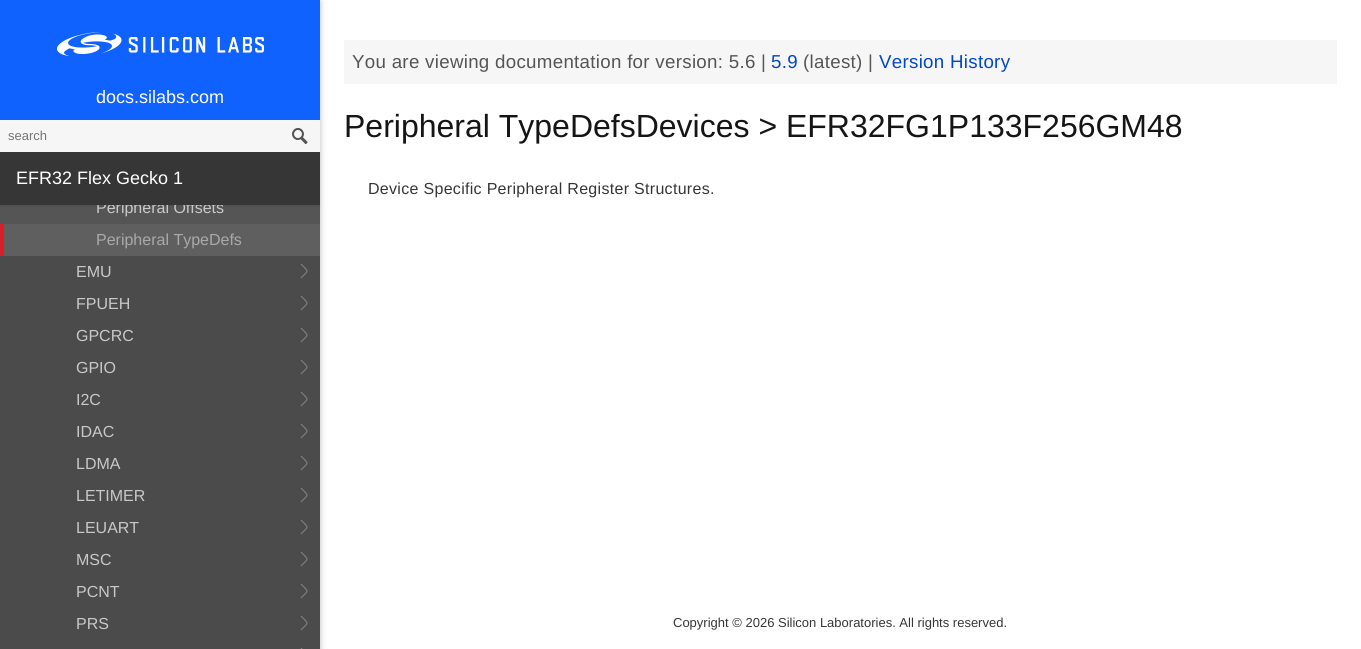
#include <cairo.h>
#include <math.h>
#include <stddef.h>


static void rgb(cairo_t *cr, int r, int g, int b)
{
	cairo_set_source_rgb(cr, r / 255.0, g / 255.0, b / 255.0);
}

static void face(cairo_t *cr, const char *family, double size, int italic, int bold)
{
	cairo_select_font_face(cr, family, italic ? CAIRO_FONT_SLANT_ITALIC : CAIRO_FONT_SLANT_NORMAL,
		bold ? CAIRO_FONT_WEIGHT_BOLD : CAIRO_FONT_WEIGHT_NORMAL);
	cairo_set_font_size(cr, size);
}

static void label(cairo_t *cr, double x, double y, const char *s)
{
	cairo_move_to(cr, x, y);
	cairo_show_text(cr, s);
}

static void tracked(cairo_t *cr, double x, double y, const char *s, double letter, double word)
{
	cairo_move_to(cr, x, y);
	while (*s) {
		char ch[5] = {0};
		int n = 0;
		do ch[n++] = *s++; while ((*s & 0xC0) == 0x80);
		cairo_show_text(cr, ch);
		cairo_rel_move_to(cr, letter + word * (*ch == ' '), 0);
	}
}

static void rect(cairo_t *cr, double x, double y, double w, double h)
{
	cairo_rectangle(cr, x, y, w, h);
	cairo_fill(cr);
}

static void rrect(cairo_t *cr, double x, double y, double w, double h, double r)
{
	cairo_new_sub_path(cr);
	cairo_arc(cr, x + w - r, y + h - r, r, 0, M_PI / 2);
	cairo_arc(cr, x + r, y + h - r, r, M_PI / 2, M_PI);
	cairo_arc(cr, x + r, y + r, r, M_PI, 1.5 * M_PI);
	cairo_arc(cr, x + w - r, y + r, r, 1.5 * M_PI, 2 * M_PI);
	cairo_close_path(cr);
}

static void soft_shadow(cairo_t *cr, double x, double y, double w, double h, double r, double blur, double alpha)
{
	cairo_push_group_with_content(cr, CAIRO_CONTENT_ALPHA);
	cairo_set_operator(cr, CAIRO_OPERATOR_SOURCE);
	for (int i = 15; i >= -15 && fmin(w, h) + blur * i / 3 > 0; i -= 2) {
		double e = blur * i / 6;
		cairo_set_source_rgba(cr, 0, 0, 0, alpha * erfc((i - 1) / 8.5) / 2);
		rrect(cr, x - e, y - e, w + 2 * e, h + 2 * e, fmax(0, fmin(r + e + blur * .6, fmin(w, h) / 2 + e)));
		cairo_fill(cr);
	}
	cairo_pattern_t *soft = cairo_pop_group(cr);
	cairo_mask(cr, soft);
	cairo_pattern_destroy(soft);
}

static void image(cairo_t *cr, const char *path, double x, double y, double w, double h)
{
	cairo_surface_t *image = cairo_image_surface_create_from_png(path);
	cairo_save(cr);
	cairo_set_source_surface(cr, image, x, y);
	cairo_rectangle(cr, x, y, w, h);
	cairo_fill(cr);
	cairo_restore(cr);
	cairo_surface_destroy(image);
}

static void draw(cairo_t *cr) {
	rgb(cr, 255, 255, 255);
	cairo_paint(cr);
	rgb(cr, 0, 0, 0);
	soft_shadow(cr, 0, 2, 320, 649, 0, 5, 0.12);
	soft_shadow(cr, 0, 2, 320, 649, 0, 2.5, 0.16);
	rgb(cr, 15, 98, 254);
	rect(cr, 0, 0, 320, 120);
	image(cr, "image0.png", 57, 32, 207, 24);
	face(cr, "Liberation Sans", 18, 0, 0);
	rgb(cr, 255, 255, 255);
	label(cr, 96, 103, "docs.silabs.com");
	rgb(cr, 246, 246, 246);
	rect(cr, 0, 120, 320, 32);
	face(cr, "Liberation Sans", 13, 0, 0);
	rgb(cr, 117, 117, 117);
	label(cr, 8, 140, "search");
	image(cr, "image1.png", 292, 128, 16, 16);
	rgb(cr, 85, 85, 85);
	rect(cr, 0, 205, 320, 19);
	rgb(cr, 0, 0, 0);
	soft_shadow(cr, 0, 154, 320, 53, 0, 1, 0.06);
	face(cr, "Liberation Sans", 16, 0, 0);
	rgb(cr, 200, 200, 200);
	label(cr, 96, 213, "Peripheral Offsets");
	rgb(cr, 54, 54, 54);
	rect(cr, 0, 152, 320, 53);
	face(cr, "Liberation Sans", 18, 0, 0);
	rgb(cr, 255, 255, 255);
	label(cr, 16, 184, "EFR32 Flex Gecko 1");
	rgb(cr, 75, 75, 75);
	rect(cr, 0, 256, 320, 393);
	rgb(cr, 95, 95, 95);
	rect(cr, 4, 224, 316, 32);
	rgb(cr, 217, 30, 42);
	rect(cr, 0, 224, 4, 32);
	face(cr, "Liberation Sans", 16, 0, 0);
	rgb(cr, 169, 169, 169);
	label(cr, 96, 245, "Peripheral TypeDefs");
	rgb(cr, 200, 200, 200);
	label(cr, 76, 277, "EMU");
	cairo_new_path(cr);
	cairo_move_to(cr, 301, 264);
	cairo_curve_to(cr, 309, 272.5, 309, 269.5, 301, 278);
	rgb(cr, 128, 129, 133);
	cairo_set_line_width(cr, 1.1);
	cairo_stroke(cr);
	rgb(cr, 200, 200, 200);
	label(cr, 76, 309, "FPUEH");
	cairo_new_path(cr);
	cairo_move_to(cr, 301, 296);
	cairo_curve_to(cr, 309, 304.5, 309, 301.5, 301, 310);
	rgb(cr, 128, 129, 133);
	cairo_stroke(cr);
	rgb(cr, 200, 200, 200);
	label(cr, 76, 341, "GPCRC");
	cairo_new_path(cr);
	cairo_move_to(cr, 301, 328);
	cairo_curve_to(cr, 309, 336.5, 309, 333.5, 301, 342);
	rgb(cr, 128, 129, 133);
	cairo_stroke(cr);
	rgb(cr, 200, 200, 200);
	label(cr, 76, 373, "GPIO");
	cairo_new_path(cr);
	cairo_move_to(cr, 301, 360);
	cairo_curve_to(cr, 309, 368.5, 309, 365.5, 301, 374);
	rgb(cr, 128, 129, 133);
	cairo_stroke(cr);
	rgb(cr, 200, 200, 200);
	label(cr, 76, 405, "I2C");
	cairo_new_path(cr);
	cairo_move_to(cr, 301, 392);
	cairo_curve_to(cr, 309, 400.5, 309, 397.5, 301, 406);
	rgb(cr, 128, 129, 133);
	cairo_stroke(cr);
	rgb(cr, 200, 200, 200);
	label(cr, 76, 437, "IDAC");
	cairo_new_path(cr);
	cairo_move_to(cr, 301, 424);
	cairo_curve_to(cr, 309, 432.5, 309, 429.5, 301, 438);
	rgb(cr, 128, 129, 133);
	cairo_stroke(cr);
	rgb(cr, 200, 200, 200);
	label(cr, 76, 469, "LDMA");
	cairo_new_path(cr);
	cairo_move_to(cr, 301, 456);
	cairo_curve_to(cr, 309, 464.5, 309, 461.5, 301, 470);
	rgb(cr, 128, 129, 133);
	cairo_stroke(cr);
	rgb(cr, 200, 200, 200);
	label(cr, 76, 501, "LETIMER");
	cairo_new_path(cr);
	cairo_move_to(cr, 301, 488);
	cairo_curve_to(cr, 309, 496.5, 309, 493.5, 301, 502);
	rgb(cr, 128, 129, 133);
	cairo_stroke(cr);
	rgb(cr, 200, 200, 200);
	label(cr, 76, 533, "LEUART");
	cairo_new_path(cr);
	cairo_move_to(cr, 301, 520);
	cairo_curve_to(cr, 309, 528.5, 309, 525.5, 301, 534);
	rgb(cr, 128, 129, 133);
	cairo_stroke(cr);
	rgb(cr, 200, 200, 200);
	label(cr, 76, 565, "MSC");
	cairo_new_path(cr);
	cairo_move_to(cr, 301, 552);
	cairo_curve_to(cr, 309, 560.5, 309, 557.5, 301, 566);
	rgb(cr, 128, 129, 133);
	cairo_stroke(cr);
	rgb(cr, 200, 200, 200);
	label(cr, 76, 597, "PCNT");
	cairo_new_path(cr);
	cairo_move_to(cr, 301, 584);
	cairo_curve_to(cr, 309, 592.5, 309, 589.5, 301, 598);
	rgb(cr, 128, 129, 133);
	cairo_stroke(cr);
	rgb(cr, 200, 200, 200);
	label(cr, 76, 629, "PRS");
	cairo_new_path(cr);
	cairo_move_to(cr, 301, 616);
	cairo_curve_to(cr, 309, 624.5, 309, 621.5, 301, 630);
	cairo_move_to(cr, 301, 648);
	cairo_curve_to(cr, 309, 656.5, 309, 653.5, 301, 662);
	rgb(cr, 128, 129, 133);
	cairo_stroke(cr);
	rgb(cr, 246, 246, 246);
	rect(cr, 344, 40, 993, 44);
	face(cr, "Liberation Sans", 18.7, 0, 0);
	rgb(cr, 85, 85, 85);
	tracked(cr, 352, 68, "You are viewing documentation for version: 5.6 |", 0.3, 0);
	rgb(cr, 1, 71, 202);
	tracked(cr, 771, 68, "5.9", 0.3, 0);
	rgb(cr, 85, 85, 85);
	tracked(cr, 803, 68, "(latest) |", 0.3, 0);
	rgb(cr, 1, 71, 202);
	tracked(cr, 879, 68, "Version History", 0.3, 0);
	face(cr, "Liberation Sans", 32, 0, 0);
	rgb(cr, 21, 21, 21);
	label(cr, 344, 137, "Peripheral TypeDefsDevices > EFR32FG1P133F256GM48");
	face(cr, "Liberation Sans", 16, 0, 0);
	rgb(cr, 54, 54, 54);
	tracked(cr, 368, 194, "Device Specific Peripheral Register Structures.", 0.3, 0);
	face(cr, "Liberation Sans", 13, 0, 0);
	label(cr, 673, 627, "Copyright © 2026 Silicon Laboratories. All rights reserved.");
}

int main(void) {
	cairo_surface_t *surface = cairo_image_surface_create(CAIRO_FORMAT_RGB24, 1361, 649);
	cairo_t *cr = cairo_create(surface);
	cairo_font_options_t *options = cairo_font_options_create();
	cairo_font_options_set_hint_metrics(options, CAIRO_HINT_METRICS_OFF);
	cairo_font_options_set_hint_style(options, CAIRO_HINT_STYLE_NONE);
	cairo_set_font_options(cr, options);
	cairo_set_miter_limit(cr, 4);
	draw(cr);
	cairo_surface_write_to_png(surface, "render.png");
	cairo_font_options_destroy(options);
	cairo_destroy(cr);
	cairo_surface_destroy(surface);
	return 0;
}
